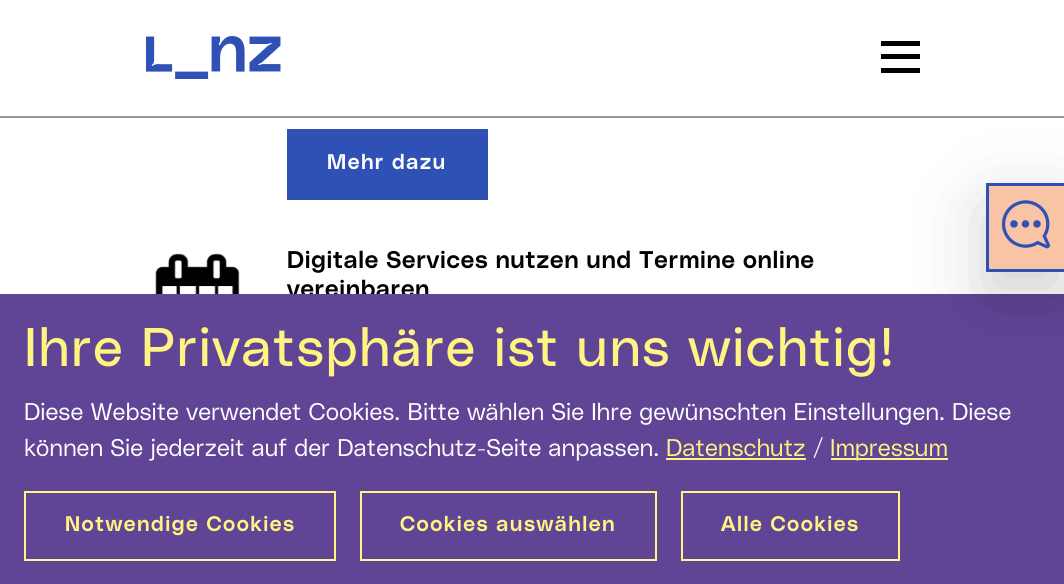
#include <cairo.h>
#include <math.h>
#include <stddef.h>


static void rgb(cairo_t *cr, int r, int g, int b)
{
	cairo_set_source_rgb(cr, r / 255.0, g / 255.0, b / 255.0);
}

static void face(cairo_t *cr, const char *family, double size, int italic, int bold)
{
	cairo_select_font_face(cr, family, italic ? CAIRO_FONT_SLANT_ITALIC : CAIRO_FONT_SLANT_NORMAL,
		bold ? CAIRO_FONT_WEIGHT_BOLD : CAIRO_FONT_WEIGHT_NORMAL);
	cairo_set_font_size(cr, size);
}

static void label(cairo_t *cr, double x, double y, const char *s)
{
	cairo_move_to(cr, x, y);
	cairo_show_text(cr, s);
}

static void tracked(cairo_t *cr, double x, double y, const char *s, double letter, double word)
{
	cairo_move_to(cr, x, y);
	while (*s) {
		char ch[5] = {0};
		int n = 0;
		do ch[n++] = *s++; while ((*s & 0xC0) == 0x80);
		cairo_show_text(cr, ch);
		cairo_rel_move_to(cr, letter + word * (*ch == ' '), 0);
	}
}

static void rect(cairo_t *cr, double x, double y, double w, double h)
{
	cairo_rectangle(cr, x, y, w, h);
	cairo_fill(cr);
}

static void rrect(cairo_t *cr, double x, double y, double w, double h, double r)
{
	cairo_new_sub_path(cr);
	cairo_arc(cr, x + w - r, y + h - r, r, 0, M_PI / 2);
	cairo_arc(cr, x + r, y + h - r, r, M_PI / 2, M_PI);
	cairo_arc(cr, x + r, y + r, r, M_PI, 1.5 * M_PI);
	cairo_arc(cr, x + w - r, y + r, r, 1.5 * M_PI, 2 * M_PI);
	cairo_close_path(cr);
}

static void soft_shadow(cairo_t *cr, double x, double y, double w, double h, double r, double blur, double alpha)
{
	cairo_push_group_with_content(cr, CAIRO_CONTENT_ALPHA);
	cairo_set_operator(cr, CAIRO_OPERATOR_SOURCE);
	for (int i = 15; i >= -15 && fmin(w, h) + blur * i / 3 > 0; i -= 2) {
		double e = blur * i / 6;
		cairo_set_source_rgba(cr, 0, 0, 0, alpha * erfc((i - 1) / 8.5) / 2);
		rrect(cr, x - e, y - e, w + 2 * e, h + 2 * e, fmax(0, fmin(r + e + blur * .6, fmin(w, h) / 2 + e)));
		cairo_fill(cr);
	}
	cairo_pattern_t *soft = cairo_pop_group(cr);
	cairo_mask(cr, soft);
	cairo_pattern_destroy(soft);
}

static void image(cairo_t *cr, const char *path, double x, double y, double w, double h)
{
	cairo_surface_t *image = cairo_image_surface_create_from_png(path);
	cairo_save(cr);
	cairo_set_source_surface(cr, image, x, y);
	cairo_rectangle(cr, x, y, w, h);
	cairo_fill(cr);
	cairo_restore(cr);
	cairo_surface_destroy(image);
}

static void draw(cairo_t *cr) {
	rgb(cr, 255, 255, 255);
	cairo_paint(cr);
	face(cr, "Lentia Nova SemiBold", 24, 0, 0);
	rgb(cr, 0, 0, 0);
	tracked(cr, 287, 297, "vereinbaren", 0.75, 0);
	rgb(cr, 96, 69, 150);
	rect(cr, 0, 294, 1064, 290);
	rgb(cr, 0, 0, 0);
	soft_shadow(cr, 986, 207, 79, 89, 0, 36, 0.18);
	rgb(cr, 151, 151, 151);
	rect(cr, 0, 116, 1064, 2);
	image(cr, "image0.png", 146, 36, 135, 43);
	rgb(cr, 0, 0, 0);
	rect(cr, 881, 41, 39, 5);
	rect(cr, 881, 54, 39, 5);
	rect(cr, 881, 68, 39, 5);
	rgb(cr, 47, 81, 182);
	rect(cr, 287, 129, 201, 71);
	face(cr, "Lentia Nova SemiBold", 21, 0, 0);
	rgb(cr, 255, 255, 255);
	tracked(cr, 327, 169, "Mehr dazu", 1.5, 0);
	image(cr, "image1.png", 155, 253, 85, 41);
	face(cr, "Lentia Nova SemiBold", 24, 0, 0);
	rgb(cr, 0, 0, 0);
	tracked(cr, 287, 268, "Digitale Services nutzen und Termine online", 0.75, 0);
	rgb(cr, 249, 195, 166);
	rect(cr, 989, 186, 75, 83);
	rgb(cr, 47, 81, 182);
	rect(cr, 986, 183, 78, 3);
	rect(cr, 986, 269, 78, 3);
	rect(cr, 986, 183, 3, 89);
	image(cr, "image2.png", 1001, 200, 49, 49);
	face(cr, "Lentia Nova", 54, 0, 0);
	rgb(cr, 255, 243, 129);
	tracked(cr, 24, 366, "Ihre Privatsphäre ist uns wichtig!", 1.1, 0);
	face(cr, "Lentia Nova Light", 24, 0, 0);
	rgb(cr, 255, 255, 255);
	label(cr, 24, 420, "Diese Website verwendet Cookies. Bitte wählen Sie Ihre gewünschten Einstellungen. Diese");
	label(cr, 24, 456, "können Sie jederzeit auf der Datenschutz-Seite anpassen.");
	rgb(cr, 255, 243, 129);
	label(cr, 666, 456, "Datenschutz");
	rect(cr, 666, 458, 140, 2);
	rgb(cr, 255, 255, 255);
	label(cr, 813, 456, "/");
	rgb(cr, 255, 243, 129);
	rect(cr, 831, 458, 117, 2);
	label(cr, 830, 456, "Impressum");
	cairo_rectangle(cr, 25, 492, 310, 68);
	cairo_stroke(cr);
	face(cr, "Lentia Nova SemiBold", 21, 0, 0);
	tracked(cr, 65, 531, "Notwendige Cookies", 1.5, 0);
	cairo_rectangle(cr, 361, 492, 295, 68);
	cairo_stroke(cr);
	tracked(cr, 400, 531, "Cookies auswählen", 1.5, 0);
	cairo_rectangle(cr, 682, 492, 217, 68);
	cairo_stroke(cr);
	tracked(cr, 721, 531, "Alle Cookies", 1.5, 0);
}

int main(void) {
	cairo_surface_t *surface = cairo_image_surface_create(CAIRO_FORMAT_RGB24, 1064, 584);
	cairo_t *cr = cairo_create(surface);
	cairo_font_options_t *options = cairo_font_options_create();
	cairo_font_options_set_hint_metrics(options, CAIRO_HINT_METRICS_OFF);
	cairo_font_options_set_hint_style(options, CAIRO_HINT_STYLE_NONE);
	cairo_set_font_options(cr, options);
	cairo_set_miter_limit(cr, 4);
	draw(cr);
	cairo_surface_write_to_png(surface, "render.png");
	cairo_font_options_destroy(options);
	cairo_destroy(cr);
	cairo_surface_destroy(surface);
	return 0;
}
